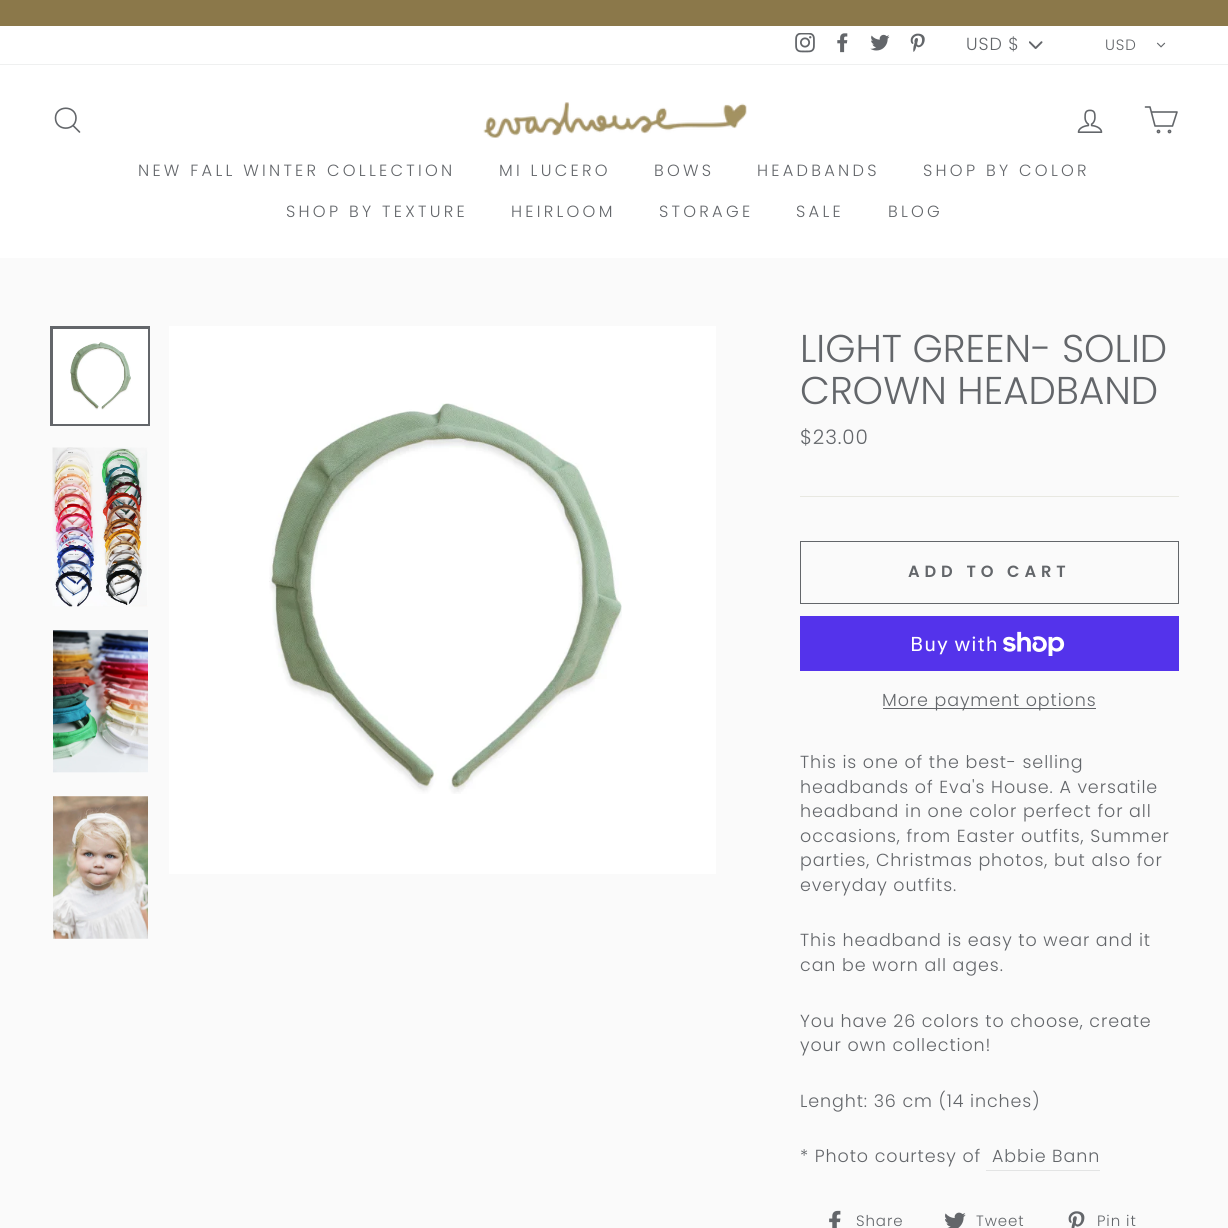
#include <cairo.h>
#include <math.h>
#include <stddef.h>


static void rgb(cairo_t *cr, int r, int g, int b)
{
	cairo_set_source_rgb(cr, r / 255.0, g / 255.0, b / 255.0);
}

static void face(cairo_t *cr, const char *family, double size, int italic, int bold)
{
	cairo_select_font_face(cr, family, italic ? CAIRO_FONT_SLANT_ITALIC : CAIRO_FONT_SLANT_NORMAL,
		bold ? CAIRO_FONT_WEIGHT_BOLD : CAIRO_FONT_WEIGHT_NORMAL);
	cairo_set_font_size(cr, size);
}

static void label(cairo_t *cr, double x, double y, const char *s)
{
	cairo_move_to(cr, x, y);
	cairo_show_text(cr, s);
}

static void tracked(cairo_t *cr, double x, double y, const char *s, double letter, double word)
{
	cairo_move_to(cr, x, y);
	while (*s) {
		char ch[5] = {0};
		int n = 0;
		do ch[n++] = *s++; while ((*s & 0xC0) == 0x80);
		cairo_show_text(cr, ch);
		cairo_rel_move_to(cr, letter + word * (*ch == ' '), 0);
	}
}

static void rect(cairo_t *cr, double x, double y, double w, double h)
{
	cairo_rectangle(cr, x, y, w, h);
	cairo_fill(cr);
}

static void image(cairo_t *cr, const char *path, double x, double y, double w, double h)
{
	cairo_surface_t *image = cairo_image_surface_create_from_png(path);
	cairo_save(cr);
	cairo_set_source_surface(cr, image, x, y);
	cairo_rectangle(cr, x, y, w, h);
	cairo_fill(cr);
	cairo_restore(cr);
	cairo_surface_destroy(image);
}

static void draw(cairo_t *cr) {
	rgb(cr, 250, 250, 250);
	cairo_paint(cr);
	rgb(cr, 139, 120, 74);
	rect(cr, 0, 0, 1228, 26);
	rgb(cr, 255, 255, 255);
	rect(cr, 0, 26, 1228, 38);
	image(cr, "image0.png", 795, 33, 20, 20);
	image(cr, "image1.png", 837, 33, 11, 20);
	image(cr, "image2.png", 870, 34, 20, 17);
	image(cr, "image3.png", 910, 33, 15, 19);
	image(cr, "image4.png", 1029, 41, 14, 8);
	face(cr, "Poppins Light", 17.5, 0, 0);
	rgb(cr, 99, 102, 106);
	tracked(cr, 966, 50, "USD $", 0.9, 0);
	face(cr, "Poppins Light", 15, 0, 0);
	tracked(cr, 1105, 50, "USD", 0.9, 0);
	image(cr, "image5.png", 1156, 42, 10, 6);
	rgb(cr, 255, 255, 255);
	rect(cr, 0, 65, 1228, 193);
	rgb(cr, 239, 240, 240);
	rect(cr, 0, 64, 1228, 1);
	cairo_new_path(cr);
	cairo_move_to(cr, 76, 118);
	cairo_curve_to(cr, 76, 131.5, 55.5, 131.5, 55.5, 118);
	cairo_curve_to(cr, 55.5, 105, 76, 105, 76, 118);
	cairo_close_path(cr);
	cairo_move_to(cr, 79.5, 132);
	cairo_line_to(cr, 73, 125.5);
	rgb(cr, 99, 102, 106);
	cairo_set_line_width(cr, 1.6);
	cairo_set_line_cap(cr, CAIRO_LINE_CAP_ROUND);
	cairo_set_line_join(cr, CAIRO_LINE_JOIN_ROUND);
	cairo_stroke(cr);
	image(cr, "image6.png", 483, 102, 264, 36);
	image(cr, "image7.png", 1077, 109, 26, 24);
	cairo_new_path(cr);
	cairo_move_to(cr, 1151.5, 112);
	cairo_line_to(cr, 1177, 112);
	cairo_line_to(cr, 1172.5, 126);
	cairo_line_to(cr, 1155, 126);
	cairo_line_to(cr, 1150, 107);
	cairo_line_to(cr, 1145.5, 107);
	cairo_stroke(cr);
	cairo_arc(cr, 1158.5, 131.5, 1.1, 0, 2 * M_PI);
	cairo_set_line_cap(cr, CAIRO_LINE_CAP_BUTT);
	cairo_set_line_join(cr, CAIRO_LINE_JOIN_MITER);
	cairo_stroke(cr);
	cairo_arc(cr, 1169.5, 131.5, 1.1, 0, 2 * M_PI);
	cairo_stroke(cr);
	face(cr, "Poppins Light", 16.25, 0, 0);
	tracked(cr, 138, 176, "NEW FALL WINTER COLLECTION", 3.25, 0);
	tracked(cr, 499, 176, "MI LUCERO", 3.25, 0);
	tracked(cr, 654, 176, "BOWS", 3.25, 0);
	tracked(cr, 757, 176, "HEADBANDS", 3.25, 0);
	tracked(cr, 923, 176, "SHOP BY COLOR", 3.25, 0);
	tracked(cr, 286, 217, "SHOP BY TEXTURE", 3.25, 0);
	tracked(cr, 511, 217, "HEIRLOOM", 3.25, 0);
	tracked(cr, 659, 217, "STORAGE", 3.25, 0);
	tracked(cr, 796, 217, "SALE", 3.25, 0);
	tracked(cr, 888, 217, "BLOG", 3.25, 0);
	cairo_rectangle(cr, 51.5, 327.5, 97, 97);
	cairo_set_line_width(cr, 3);
	cairo_stroke(cr);
	rgb(cr, 255, 255, 255);
	rect(cr, 53, 329, 95, 95);
	image(cr, "image8.png", 70, 342, 61, 68);
	rect(cr, 147, 448, 1, 158);
	image(cr, "image9.png", 52, 447, 96, 160);
	rect(cr, 53, 630, 95, 143);
	image(cr, "image10.png", 53, 630, 95, 143);
	image(cr, "image11.png", 53, 796, 95, 143);
	rect(cr, 169, 326, 547, 548);
	image(cr, "image12.png", 269, 403, 353, 391);
	face(cr, "Poppins Light", 38.75, 0, 0);
	rgb(cr, 99, 102, 106);
	label(cr, 800, 362, "LIGHT GREEN- SOLID");
	label(cr, 800, 404, "CROWN HEADBAND");
	face(cr, "Poppins Light", 20, 0, 0);
	tracked(cr, 800, 444, "$23.00", 0.9, 0);
	rgb(cr, 232, 232, 225);
	rect(cr, 800, 496, 379, 1);
	cairo_rectangle(cr, 800.5, 541.5, 378, 62);
	rgb(cr, 99, 102, 106);
	cairo_set_line_width(cr, 1);
	cairo_stroke(cr);
	face(cr, "Poppins SemiBold", 16.25, 0, 0);
	tracked(cr, 908, 577, "ADD TO CART", 4.9, 0);
	rgb(cr, 84, 51, 235);
	rect(cr, 800, 616, 379, 55);
	face(cr, "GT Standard", 20, 0, 0);
	rgb(cr, 255, 255, 255);
	tracked(cr, 910, 651, "Buy with", 0.9, 0);
	image(cr, "image13.png", 1003, 631, 62, 25);
	rgb(cr, 99, 102, 106);
	rect(cr, 883, 708, 213, 1);
	face(cr, "Poppins Light", 17.5, 0, 0);
	tracked(cr, 882, 706, "More payment options", 0.9, 0);
	tracked(cr, 800, 768, "This is one of the best- selling", 0.9, 0);
	tracked(cr, 800, 793, "headbands of Eva's House. A versatile", 0.9, 0);
	tracked(cr, 800, 817, "headband in one color perfect for all", 0.9, 0);
	tracked(cr, 800, 842, "occasions, from Easter outfits, Summer", 0.9, 0);
	tracked(cr, 800, 866, "parties, Christmas photos, but also for", 0.9, 0);
	tracked(cr, 800, 891, "everyday outfits.", 0.9, 0);
	tracked(cr, 800, 946, "This headband is easy to wear and it", 0.9, 0);
	tracked(cr, 800, 971, "can be worn all ages.", 0.9, 0);
	tracked(cr, 800, 1027, "You have 26 colors to choose, create", 0.9, 0);
	tracked(cr, 800, 1051, "your own collection!", 0.9, 0);
	tracked(cr, 800, 1107, "Lenght: 36 cm (14 inches)", 0.9, 0);
	tracked(cr, 800, 1162, "* Photo courtesy of", 0.9, 0);
	rgb(cr, 227, 228, 228);
	rect(cr, 986, 1170, 114, 1);
	rgb(cr, 99, 102, 106);
	tracked(cr, 992, 1162, "Abbie Bann", 0.9, 0);
	image(cr, "image14.png", 829, 1210, 12, 18);
	face(cr, "Poppins Light", 15, 0, 0);
	tracked(cr, 856, 1226, "Share", 0.9, 0);
	image(cr, "image15.png", 945, 1212, 21, 16);
	tracked(cr, 976, 1226, "Tweet", 0.9, 0);
	image(cr, "image16.png", 1068, 1211, 17, 17);
	tracked(cr, 1097, 1226, "Pin it", 0.9, 0);
}

int main(void) {
	cairo_surface_t *surface = cairo_image_surface_create(CAIRO_FORMAT_RGB24, 1228, 1228);
	cairo_t *cr = cairo_create(surface);
	cairo_font_options_t *options = cairo_font_options_create();
	cairo_font_options_set_hint_metrics(options, CAIRO_HINT_METRICS_OFF);
	cairo_font_options_set_hint_style(options, CAIRO_HINT_STYLE_NONE);
	cairo_set_font_options(cr, options);
	cairo_set_miter_limit(cr, 4);
	draw(cr);
	cairo_surface_write_to_png(surface, "render.png");
	cairo_font_options_destroy(options);
	cairo_destroy(cr);
	cairo_surface_destroy(surface);
	return 0;
}
